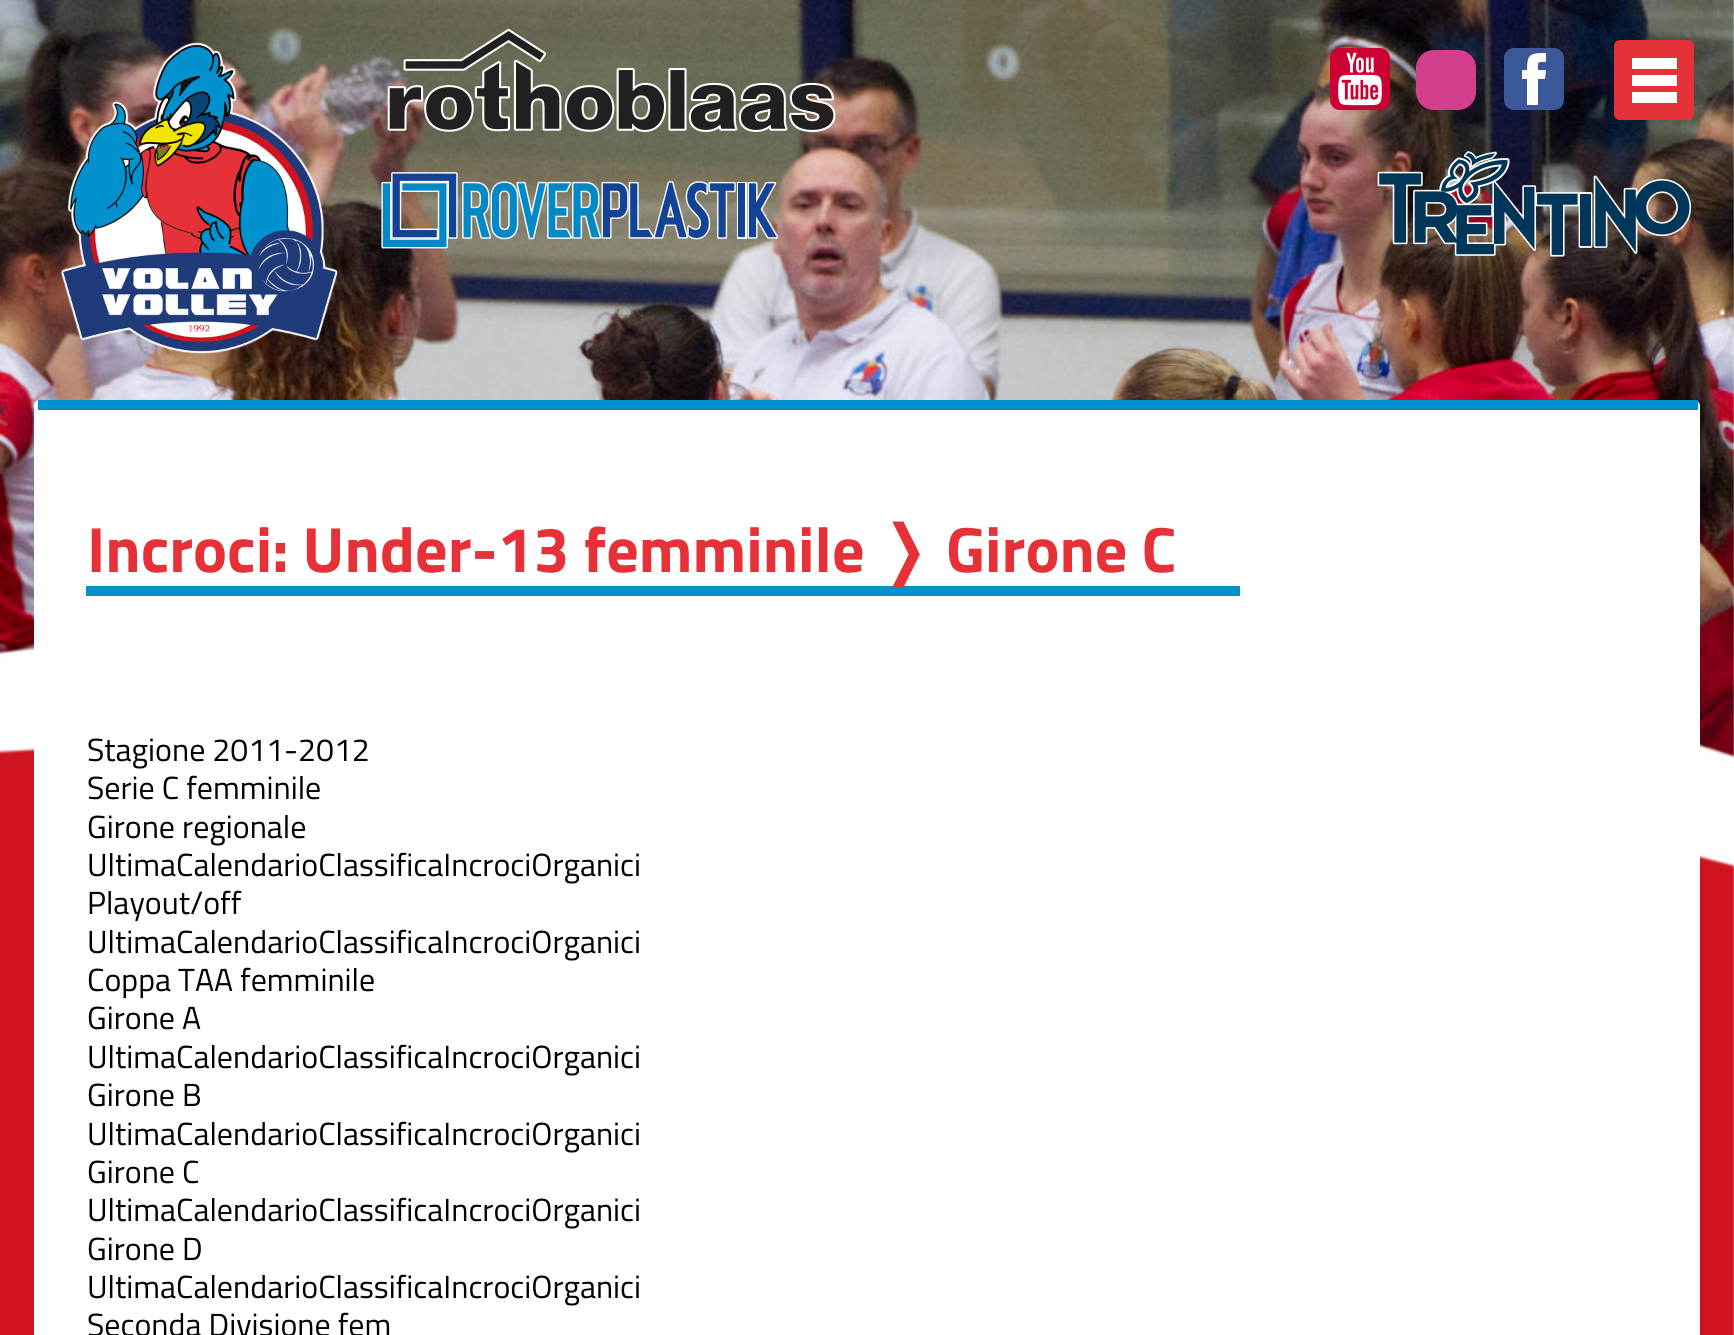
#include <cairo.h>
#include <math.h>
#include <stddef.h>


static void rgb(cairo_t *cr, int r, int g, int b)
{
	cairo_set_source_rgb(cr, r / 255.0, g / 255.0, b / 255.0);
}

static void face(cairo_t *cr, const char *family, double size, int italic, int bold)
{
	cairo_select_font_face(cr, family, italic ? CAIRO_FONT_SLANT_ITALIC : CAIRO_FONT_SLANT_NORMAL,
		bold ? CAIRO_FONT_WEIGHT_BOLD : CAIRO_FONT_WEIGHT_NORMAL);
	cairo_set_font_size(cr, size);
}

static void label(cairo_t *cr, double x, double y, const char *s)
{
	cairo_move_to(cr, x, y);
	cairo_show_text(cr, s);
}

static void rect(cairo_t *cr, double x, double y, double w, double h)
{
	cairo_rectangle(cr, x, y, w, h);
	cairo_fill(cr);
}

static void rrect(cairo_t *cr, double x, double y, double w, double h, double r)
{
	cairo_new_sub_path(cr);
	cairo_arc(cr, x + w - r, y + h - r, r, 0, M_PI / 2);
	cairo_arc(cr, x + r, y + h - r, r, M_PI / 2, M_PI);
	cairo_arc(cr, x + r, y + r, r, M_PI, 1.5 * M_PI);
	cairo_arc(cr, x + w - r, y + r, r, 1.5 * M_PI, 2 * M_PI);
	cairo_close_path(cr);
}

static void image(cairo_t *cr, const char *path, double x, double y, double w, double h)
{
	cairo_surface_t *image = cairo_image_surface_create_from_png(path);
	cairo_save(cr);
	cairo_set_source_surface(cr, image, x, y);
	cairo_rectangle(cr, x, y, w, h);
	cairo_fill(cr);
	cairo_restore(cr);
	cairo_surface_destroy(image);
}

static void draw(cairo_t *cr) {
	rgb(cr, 255, 255, 255);
	cairo_paint(cr);
	image(cr, "image0.png", 0, 0, 1734, 1335);
	image(cr, "image1.png", 60, 42, 278, 312);
	image(cr, "image2.png", 387, 29, 449, 103);
	rgb(cr, 204, 0, 51);
	rrect(cr, 1330, 48, 60, 62, 10);
	cairo_fill(cr);
	rgb(cr, 212, 63, 141);
	rrect(cr, 1416, 50, 60, 60, 18);
	cairo_fill(cr);
	rgb(cr, 59, 89, 152);
	rrect(cr, 1504, 48, 60, 62, 10);
	cairo_fill(cr);
	image(cr, "image3.png", 1338, 52, 44, 54);
	rgb(cr, 255, 255, 255);
	cairo_new_path(cr);
	cairo_move_to(cr, 1546, 70);
	cairo_line_to(cr, 1538, 70);
	cairo_curve_to(cr, 1538, 61, 1537, 62, 1546, 62);
	cairo_line_to(cr, 1546, 53);
	cairo_curve_to(cr, 1530, 53, 1527, 54, 1527, 70);
	cairo_line_to(cr, 1522, 70);
	cairo_line_to(cr, 1522, 79);
	cairo_line_to(cr, 1527, 79);
	cairo_line_to(cr, 1527, 105);
	cairo_line_to(cr, 1538, 105);
	cairo_line_to(cr, 1538, 79);
	cairo_line_to(cr, 1545, 79);
	cairo_close_path(cr);
	cairo_fill(cr);
	image(cr, "image4.png", 381, 172, 398, 77);
	image(cr, "image5.png", 1377, 151, 315, 106);
	rgb(cr, 231, 49, 56);
	rrect(cr, 1614, 40, 80, 80, 6);
	cairo_fill(cr);
	image(cr, "image6.png", 1632, 58, 45, 45);
	rgb(cr, 255, 255, 255);
	rrect(cr, 34, 400, 1666, 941, 6);
	cairo_fill(cr);
	rgb(cr, 0, 145, 206);
	rect(cr, 38, 400, 1660, 10);
	face(cr, "Titillium Web", 64, 0, 1);
	rgb(cr, 231, 49, 56);
	label(cr, 87, 572, "Incroci: Under-13 femminile");
	rgb(cr, 0, 145, 206);
	rect(cr, 86, 586, 1154, 10);
	face(cr, "DejaVu Sans", 64, 0, 1);
	rgb(cr, 231, 49, 56);
	label(cr, 878, 572, "❭");
	face(cr, "Titillium Web", 64, 0, 1);
	label(cr, 946, 572, "Girone C");
	face(cr, "Titillium Web", 32, 0, 0);
	rgb(cr, 0, 0, 0);
	label(cr, 87, 761, "Stagione 2011-2012");
	label(cr, 87, 799, "Serie C femminile");
	label(cr, 87, 838, "Girone regionale");
	label(cr, 87, 876, "UltimaCalendarioClassificaIncrociOrganici");
	label(cr, 87, 914, "Playout/off");
	label(cr, 87, 953, "UltimaCalendarioClassificaIncrociOrganici");
	label(cr, 87, 991, "Coppa TAA femminile");
	label(cr, 87, 1029, "Girone A");
	label(cr, 87, 1068, "UltimaCalendarioClassificaIncrociOrganici");
	label(cr, 87, 1106, "Girone B");
	label(cr, 87, 1145, "UltimaCalendarioClassificaIncrociOrganici");
	label(cr, 87, 1183, "Girone C");
	label(cr, 87, 1221, "UltimaCalendarioClassificaIncrociOrganici");
	label(cr, 87, 1260, "Girone D");
	label(cr, 87, 1298, "UltimaCalendarioClassificaIncrociOrganici");
	label(cr, 87, 1336, "Seconda Divisione fem");
}

int main(void) {
	cairo_surface_t *surface = cairo_image_surface_create(CAIRO_FORMAT_RGB24, 1734, 1335);
	cairo_t *cr = cairo_create(surface);
	cairo_font_options_t *options = cairo_font_options_create();
	cairo_font_options_set_hint_metrics(options, CAIRO_HINT_METRICS_OFF);
	cairo_font_options_set_hint_style(options, CAIRO_HINT_STYLE_NONE);
	cairo_set_font_options(cr, options);
	cairo_set_miter_limit(cr, 4);
	draw(cr);
	cairo_surface_write_to_png(surface, "render.png");
	cairo_font_options_destroy(options);
	cairo_destroy(cr);
	cairo_surface_destroy(surface);
	return 0;
}
